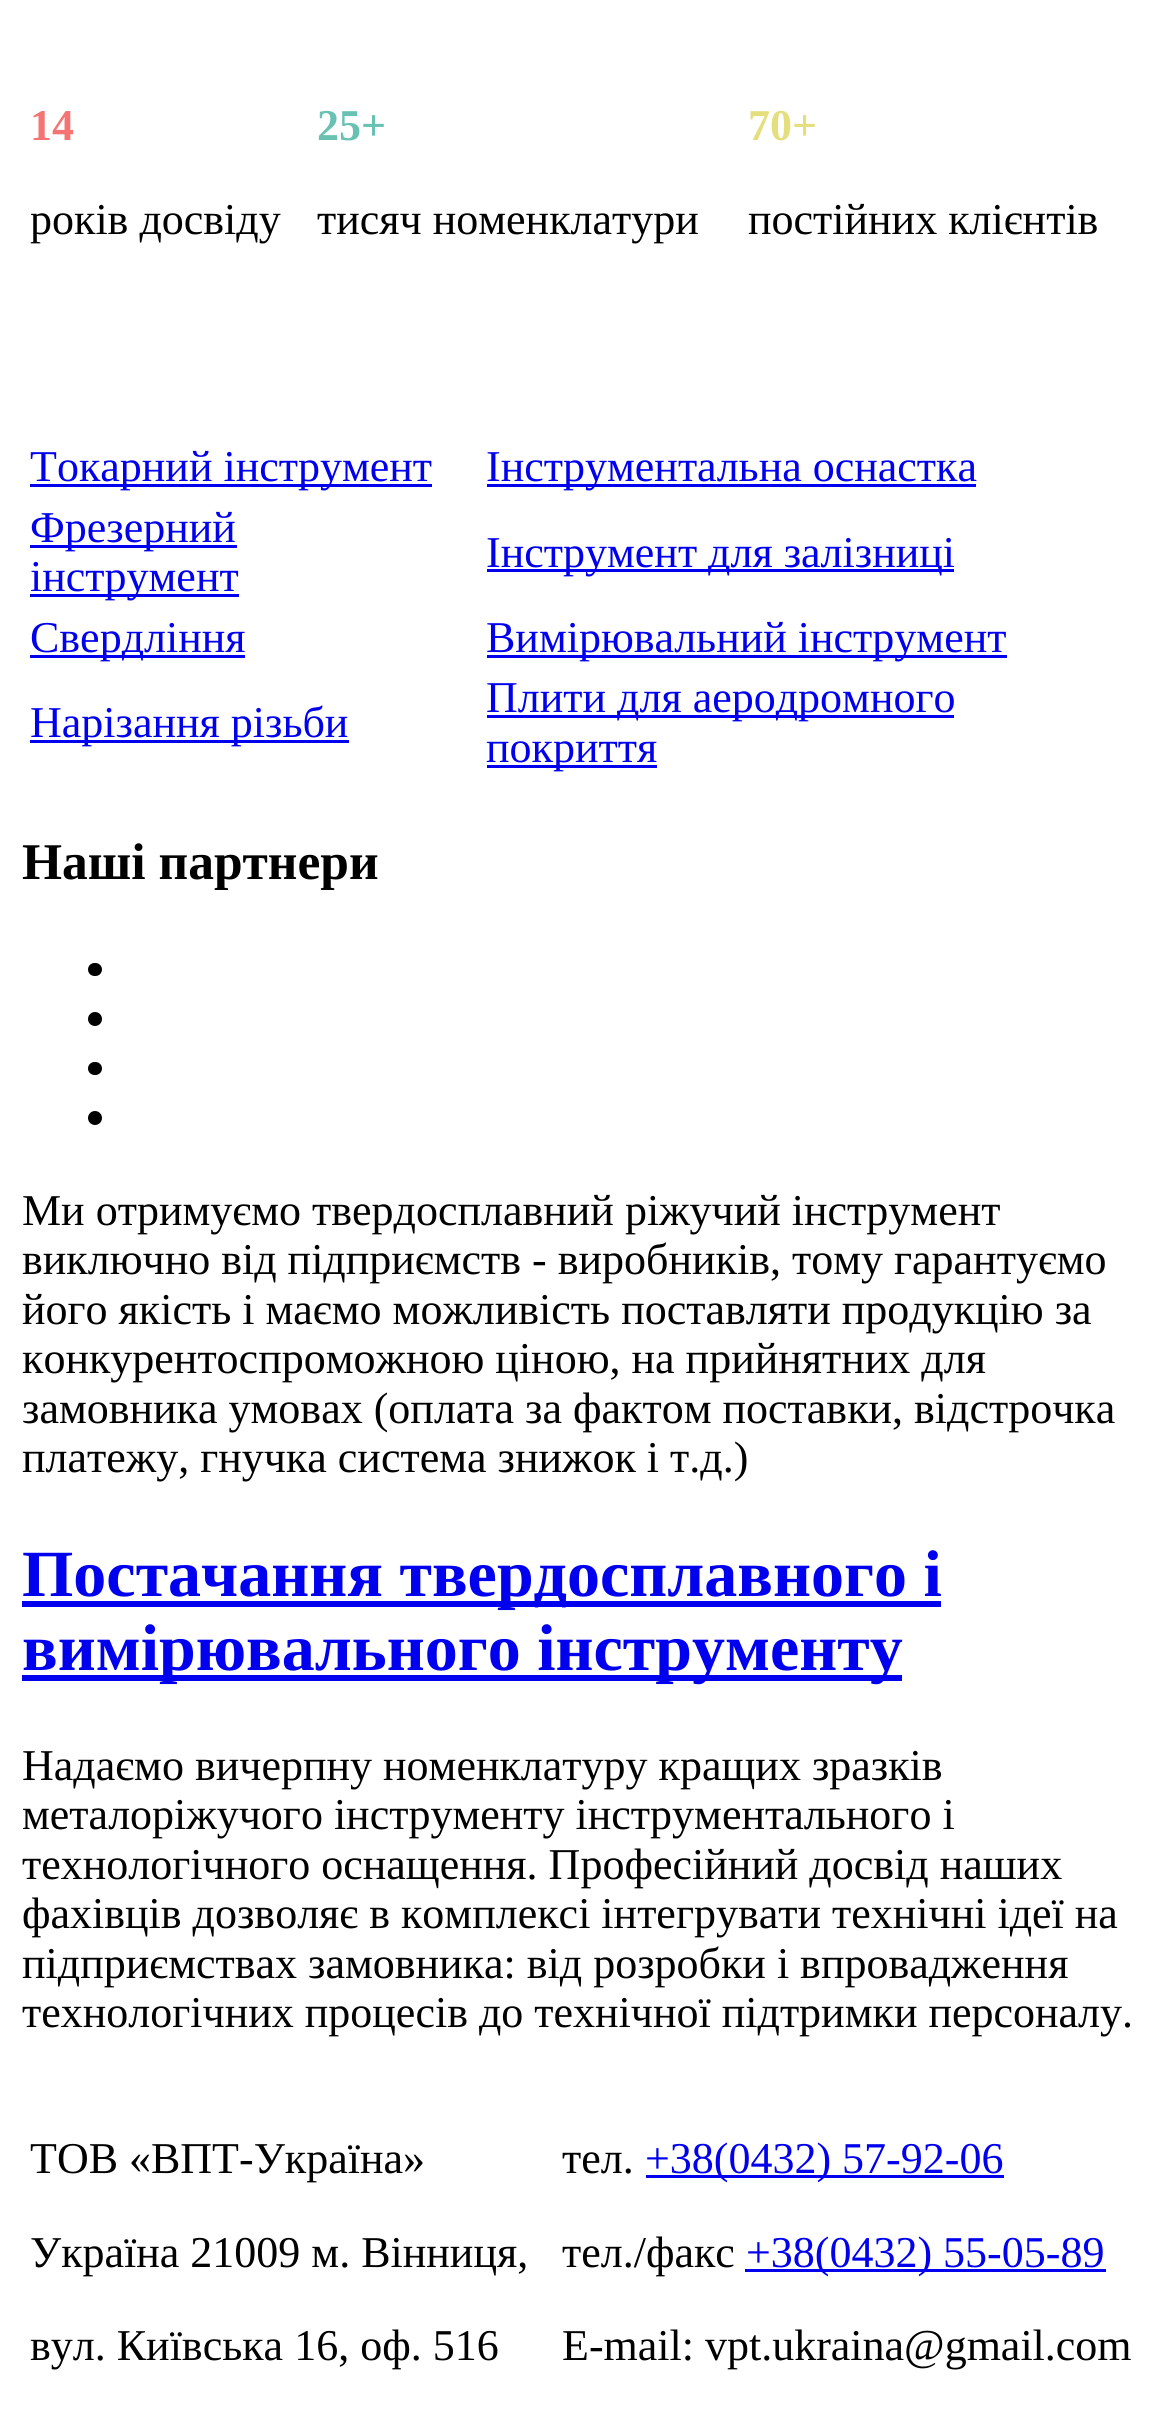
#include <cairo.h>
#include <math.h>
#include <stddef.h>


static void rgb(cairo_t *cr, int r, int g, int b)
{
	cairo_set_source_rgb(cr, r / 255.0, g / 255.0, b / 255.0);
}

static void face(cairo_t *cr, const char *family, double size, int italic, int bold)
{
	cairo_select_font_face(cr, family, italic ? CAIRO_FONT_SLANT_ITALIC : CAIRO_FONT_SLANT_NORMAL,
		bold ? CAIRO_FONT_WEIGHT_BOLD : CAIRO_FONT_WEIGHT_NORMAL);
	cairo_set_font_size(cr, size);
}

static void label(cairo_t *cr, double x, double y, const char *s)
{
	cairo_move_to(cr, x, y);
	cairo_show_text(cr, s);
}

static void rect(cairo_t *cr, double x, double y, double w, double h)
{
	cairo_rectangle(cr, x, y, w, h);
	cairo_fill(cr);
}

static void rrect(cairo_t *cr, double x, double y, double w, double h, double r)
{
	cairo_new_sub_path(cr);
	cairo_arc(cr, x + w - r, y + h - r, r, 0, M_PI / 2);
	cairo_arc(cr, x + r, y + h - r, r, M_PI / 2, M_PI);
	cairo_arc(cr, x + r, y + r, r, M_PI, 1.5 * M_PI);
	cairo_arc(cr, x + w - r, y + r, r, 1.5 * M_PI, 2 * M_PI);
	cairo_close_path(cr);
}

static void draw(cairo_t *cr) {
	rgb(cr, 255, 255, 255);
	cairo_paint(cr);
	face(cr, "Liberation Serif", 44, 0, 1);
	rgb(cr, 244, 116, 116);
	label(cr, 30, 140, "14");
	face(cr, "Liberation Serif", 44, 0, 0);
	rgb(cr, 0, 0, 0);
	label(cr, 30, 234, "років досвіду");
	face(cr, "Liberation Serif", 44, 0, 1);
	rgb(cr, 104, 193, 179);
	label(cr, 317, 140, "25+");
	face(cr, "Liberation Serif", 44, 0, 0);
	rgb(cr, 0, 0, 0);
	label(cr, 317, 234, "тисяч номенклатури");
	face(cr, "Liberation Serif", 44, 0, 1);
	rgb(cr, 228, 222, 125);
	label(cr, 748, 140, "70+");
	face(cr, "Liberation Serif", 44, 0, 0);
	rgb(cr, 0, 0, 0);
	label(cr, 748, 234, "постійних клієнтів");
	rgb(cr, 0, 0, 238);
	rect(cr, 30, 484, 402, 3);
	label(cr, 30, 481, "Токарний інструмент");
	rect(cr, 487, 484, 489, 3);
	label(cr, 486, 481, "Інструментальна оснастка");
	rect(cr, 30, 545, 207, 3);
	label(cr, 30, 542, "Фрезерний");
	rect(cr, 30, 594, 209, 3);
	label(cr, 30, 591, "інструмент");
	rect(cr, 487, 569, 467, 3);
	label(cr, 486, 567, "Інструмент для залізниці");
	rect(cr, 30, 655, 215, 3);
	label(cr, 30, 652, "Свердління");
	rect(cr, 487, 655, 520, 3);
	label(cr, 486, 652, "Вимірювальний інструмент");
	rect(cr, 30, 740, 319, 3);
	label(cr, 30, 737, "Нарізання різьби");
	rect(cr, 487, 715, 467, 3);
	label(cr, 486, 712, "Плити для аеродромного");
	rect(cr, 487, 765, 170, 3);
	label(cr, 486, 762, "покриття");
	face(cr, "Liberation Serif", 51.5, 0, 1);
	rgb(cr, 0, 0, 0);
	label(cr, 22, 879, "Наші партнери");
	rrect(cr, 88, 963, 14, 13, 6.5);
	cairo_fill(cr);
	cairo_arc(cr, 95, 1019, 7, 0, 2 * M_PI);
	cairo_fill(cr);
	rrect(cr, 88, 1062, 14, 13, 6.5);
	cairo_fill(cr);
	cairo_arc(cr, 95, 1118, 7, 0, 2 * M_PI);
	cairo_fill(cr);
	face(cr, "Liberation Serif", 44, 0, 0);
	label(cr, 22, 1225, "Ми отримуємо твердосплавний ріжучий інструмент");
	label(cr, 22, 1274, "виключно від підприємств - виробників, тому гарантуємо");
	label(cr, 22, 1324, "його якість і маємо можливість поставляти продукцію за");
	label(cr, 22, 1373, "конкурентоспроможною ціною, на прийнятних для");
	label(cr, 22, 1423, "замовника умовах (оплата за фактом поставки, відстрочка");
	label(cr, 22, 1472, "платежу, гнучка система знижок і т.д.)");
	rgb(cr, 0, 0, 238);
	rect(cr, 22, 1601, 919, 6);
	face(cr, "Liberation Serif", 66, 0, 1);
	label(cr, 22, 1596, "Постачання твердосплавного і");
	rect(cr, 22, 1675, 880, 6);
	label(cr, 22, 1670, "вимірювального інструменту");
	face(cr, "Liberation Serif", 44, 0, 0);
	rgb(cr, 0, 0, 0);
	label(cr, 22, 1780, "Надаємо вичерпну номенклатуру кращих зразків");
	label(cr, 22, 1829, "металоріжучого інструменту інструментального і");
	label(cr, 22, 1879, "технологічного оснащення. Професійний досвід наших");
	label(cr, 22, 1928, "фахівців дозволяє в комплексі інтегрувати технічні ідеї на");
	label(cr, 22, 1978, "підприємствах замовника: від розробки і впровадження");
	label(cr, 22, 2027, "технологічних процесів до технічної підтримки персоналу.");
	label(cr, 30, 2173, "ТОВ «ВПТ-Україна»");
	label(cr, 30, 2267, "Україна 21009 м. Вінниця,");
	label(cr, 30, 2360, "вул. Київська 16, оф. 516");
	label(cr, 562, 2173, "тел.");
	rgb(cr, 0, 0, 238);
	rect(cr, 646, 2175, 358, 3);
	label(cr, 645, 2173, "+38(0432) 57-92-06");
	rgb(cr, 0, 0, 0);
	label(cr, 562, 2267, "тел./факс");
	rgb(cr, 0, 0, 238);
	rect(cr, 745, 2269, 361, 3);
	label(cr, 746, 2267, "+38(0432) 55-05-89");
	rgb(cr, 0, 0, 0);
	label(cr, 562, 2360, "E-mail: vpt.ukraina@gmail.com");
}

int main(void) {
	cairo_surface_t *surface = cairo_image_surface_create(CAIRO_FORMAT_RGB24, 1161, 2425);
	cairo_t *cr = cairo_create(surface);
	cairo_font_options_t *options = cairo_font_options_create();
	cairo_font_options_set_hint_metrics(options, CAIRO_HINT_METRICS_OFF);
	cairo_font_options_set_hint_style(options, CAIRO_HINT_STYLE_NONE);
	cairo_set_font_options(cr, options);
	cairo_set_miter_limit(cr, 4);
	draw(cr);
	cairo_surface_write_to_png(surface, "render.png");
	cairo_font_options_destroy(options);
	cairo_destroy(cr);
	cairo_surface_destroy(surface);
	return 0;
}
